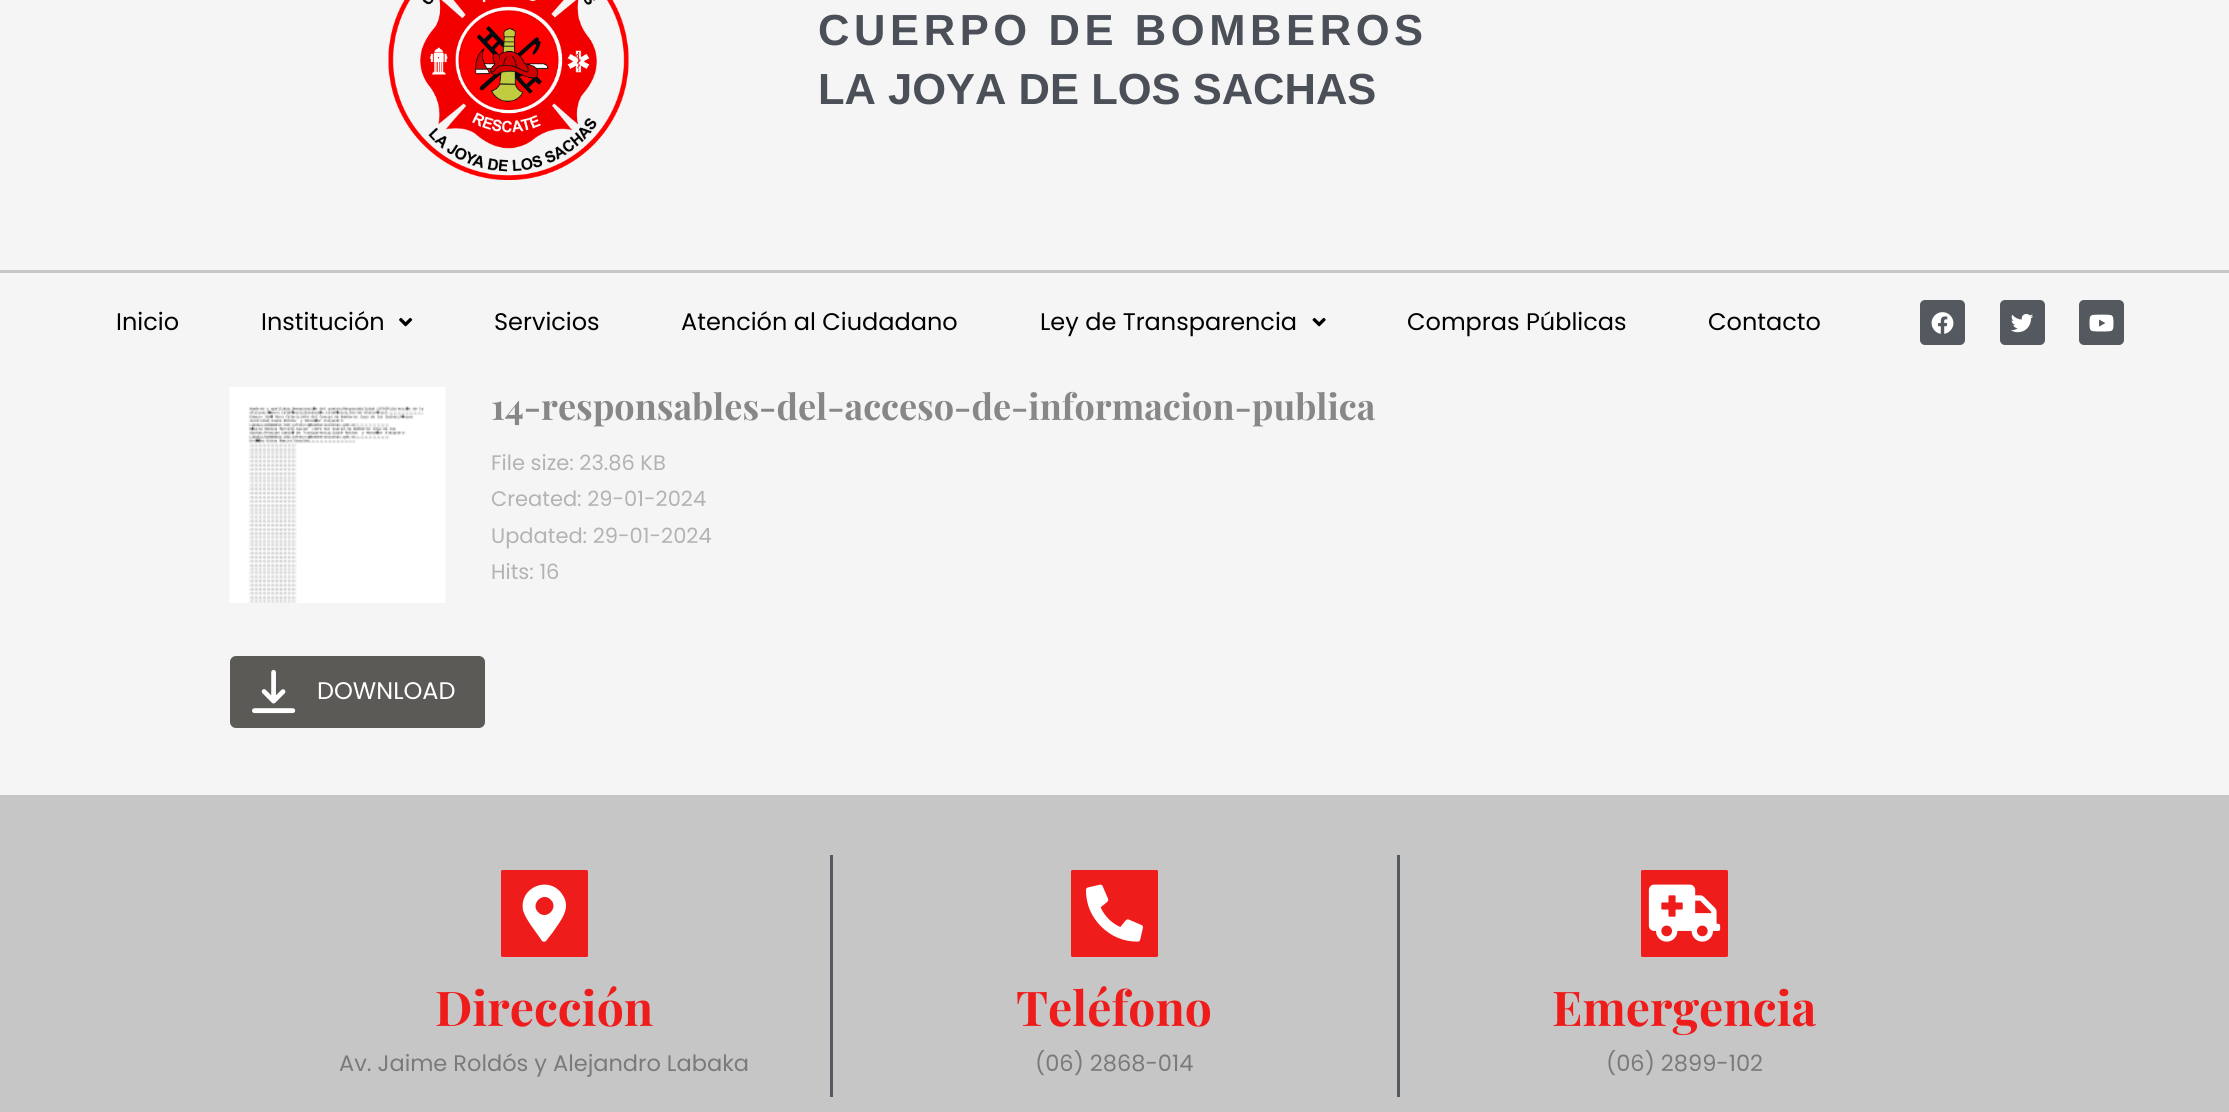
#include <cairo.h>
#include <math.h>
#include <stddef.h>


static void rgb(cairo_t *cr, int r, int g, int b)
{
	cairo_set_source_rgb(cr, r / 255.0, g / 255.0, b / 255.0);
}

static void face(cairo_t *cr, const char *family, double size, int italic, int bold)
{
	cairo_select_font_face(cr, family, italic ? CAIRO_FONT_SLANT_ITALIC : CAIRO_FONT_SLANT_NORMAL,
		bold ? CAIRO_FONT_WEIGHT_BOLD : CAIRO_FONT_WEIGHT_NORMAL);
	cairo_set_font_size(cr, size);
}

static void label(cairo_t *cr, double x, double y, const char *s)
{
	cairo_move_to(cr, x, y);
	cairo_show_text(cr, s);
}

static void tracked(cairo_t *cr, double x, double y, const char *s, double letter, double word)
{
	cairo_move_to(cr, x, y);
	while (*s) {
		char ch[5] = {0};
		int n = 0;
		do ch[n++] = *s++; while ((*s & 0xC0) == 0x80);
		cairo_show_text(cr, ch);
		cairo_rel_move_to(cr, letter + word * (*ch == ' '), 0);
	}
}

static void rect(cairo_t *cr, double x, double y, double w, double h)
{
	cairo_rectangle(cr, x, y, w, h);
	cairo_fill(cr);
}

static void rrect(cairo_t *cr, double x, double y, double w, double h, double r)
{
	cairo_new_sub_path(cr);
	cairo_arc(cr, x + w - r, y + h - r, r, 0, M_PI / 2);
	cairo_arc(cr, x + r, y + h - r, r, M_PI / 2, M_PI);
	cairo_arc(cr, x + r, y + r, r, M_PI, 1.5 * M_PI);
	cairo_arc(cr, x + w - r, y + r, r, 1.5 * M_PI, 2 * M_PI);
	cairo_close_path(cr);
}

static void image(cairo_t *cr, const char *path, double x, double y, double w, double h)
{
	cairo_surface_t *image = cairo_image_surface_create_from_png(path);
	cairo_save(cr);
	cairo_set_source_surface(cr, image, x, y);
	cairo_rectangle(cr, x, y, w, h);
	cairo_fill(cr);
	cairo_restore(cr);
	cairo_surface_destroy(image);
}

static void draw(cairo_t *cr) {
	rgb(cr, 245, 245, 245);
	cairo_paint(cr);
	image(cr, "image0.png", 388, 0, 241, 180);
	face(cr, "Liberation Sans", 43.5, 0, 1);
	rgb(cr, 75, 79, 88);
	tracked(cr, 818, 45, "CUERPO DE BOMBEROS", 4.6, 0);
	label(cr, 818, 104, "LA JOYA DE LOS SACHAS");
	rgb(cr, 198, 198, 198);
	rect(cr, 0, 270, 2229, 3);
	face(cr, "Poppins", 24, 0, 0);
	rgb(cr, 0, 0, 0);
	label(cr, 116, 330, "Inicio");
	label(cr, 261, 330, "Institución");
	image(cr, "image1.png", 399, 317, 14, 10);
	label(cr, 494, 330, "Servicios");
	label(cr, 681, 330, "Atención al Ciudadano");
	label(cr, 1040, 330, "Ley de Transparencia");
	image(cr, "image2.png", 1312, 317, 14, 10);
	label(cr, 1407, 330, "Compras Públicas");
	label(cr, 1708, 330, "Contacto");
	rgb(cr, 84, 89, 95);
	rrect(cr, 1920, 300, 45, 45, 5);
	cairo_fill(cr);
	image(cr, "image3.png", 1931, 312, 23, 22);
	rrect(cr, 2000, 300, 45, 45, 5);
	cairo_fill(cr);
	image(cr, "image4.png", 2011, 313, 23, 20);
	rrect(cr, 2079, 300, 45, 45, 5);
	cairo_fill(cr);
	image(cr, "image5.png", 2089, 314, 25, 18);
	image(cr, "image6.png", 229, 387, 217, 216);
	face(cr, "Playfair Display", 36, 0, 1);
	rgb(cr, 135, 135, 135);
	label(cr, 491, 420, "14-responsables-del-acceso-de-informacion-publica");
	face(cr, "Poppins", 21, 0, 0);
	rgb(cr, 179, 179, 179);
	label(cr, 491, 470, "File size: 23.86 KB");
	label(cr, 491, 506, "Created: 29-01-2024");
	label(cr, 491, 543, "Updated: 29-01-2024");
	label(cr, 491, 579, "Hits: 16");
	rgb(cr, 92, 90, 87);
	rrect(cr, 230, 656, 255, 72, 6);
	cairo_fill(cr);
	image(cr, "image7.png", 252, 669, 44, 45);
	face(cr, "Poppins", 24, 0, 0);
	rgb(cr, 255, 255, 255);
	label(cr, 317, 699, "DOWNLOAD");
	rgb(cr, 198, 198, 198);
	rect(cr, 0, 795, 2229, 317);
	rgb(cr, 239, 28, 28);
	rrect(cr, 501, 870, 87, 87, 1.5);
	cairo_fill(cr);
	rgb(cr, 255, 255, 255);
	cairo_new_path(cr);
	cairo_move_to(cr, 542, 941);
	cairo_curve_to(cr, 537, 933, 525, 919, 523, 910);
	cairo_curve_to(cr, 519, 887, 549, 875, 562, 894);
	cairo_curve_to(cr, 572, 908, 561, 920, 553, 932);
	cairo_line_to(cr, 546, 941);
	cairo_curve_to(cr, 545, 942, 543, 942, 542, 941);
	cairo_close_path(cr);
	cairo_move_to(cr, 538, 912);
	cairo_curve_to(cr, 546, 921, 559, 908, 551, 900);
	cairo_curve_to(cr, 543, 891, 530, 904, 538, 912);
	cairo_close_path(cr);
	cairo_fill(cr);
	face(cr, "Playfair Display", 48, 0, 1);
	rgb(cr, 239, 28, 28);
	label(cr, 435, 1026, "Dirección");
	face(cr, "Poppins", 22.5, 0, 0);
	rgb(cr, 122, 122, 122);
	label(cr, 339, 1071, "Av. Jaime Roldós y Alejandro Labaka");
	rgb(cr, 84, 89, 95);
	rect(cr, 1397, 855, 3, 242);
	rect(cr, 830, 855, 3, 242);
	rgb(cr, 239, 28, 28);
	rrect(cr, 1071, 870, 87, 87, 1.5);
	cairo_fill(cr);
	image(cr, "image8.png", 1086, 884, 57, 58);
	face(cr, "Playfair Display", 48, 0, 1);
	label(cr, 1016, 1026, "Teléfono");
	face(cr, "Poppins", 22.5, 0, 0);
	rgb(cr, 122, 122, 122);
	label(cr, 1035, 1071, "(06) 2868-014");
	rgb(cr, 239, 28, 28);
	rrect(cr, 1641, 870, 87, 87, 1.5);
	cairo_fill(cr);
	image(cr, "image9.png", 1648, 884, 73, 58);
	face(cr, "Playfair Display", 48, 0, 1);
	label(cr, 1552, 1026, "Emergencia");
	face(cr, "Poppins", 22.5, 0, 0);
	rgb(cr, 122, 122, 122);
	label(cr, 1606, 1071, "(06) 2899-102");
}

int main(void) {
	cairo_surface_t *surface = cairo_image_surface_create(CAIRO_FORMAT_RGB24, 2229, 1112);
	cairo_t *cr = cairo_create(surface);
	cairo_font_options_t *options = cairo_font_options_create();
	cairo_font_options_set_hint_metrics(options, CAIRO_HINT_METRICS_OFF);
	cairo_font_options_set_hint_style(options, CAIRO_HINT_STYLE_NONE);
	cairo_set_font_options(cr, options);
	cairo_set_miter_limit(cr, 4);
	draw(cr);
	cairo_surface_write_to_png(surface, "render.png");
	cairo_font_options_destroy(options);
	cairo_destroy(cr);
	cairo_surface_destroy(surface);
	return 0;
}
